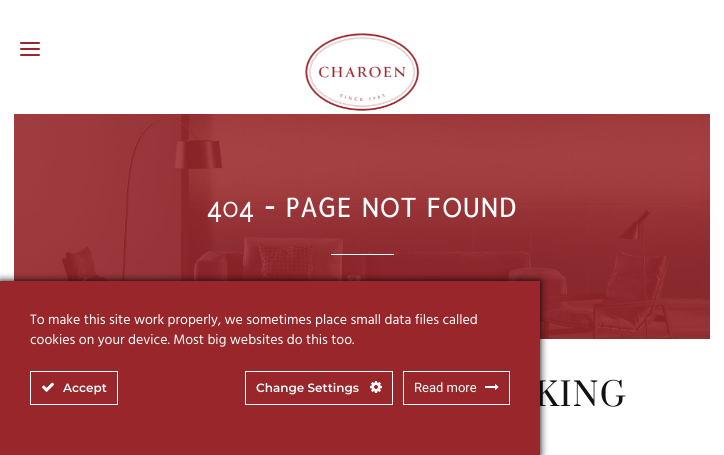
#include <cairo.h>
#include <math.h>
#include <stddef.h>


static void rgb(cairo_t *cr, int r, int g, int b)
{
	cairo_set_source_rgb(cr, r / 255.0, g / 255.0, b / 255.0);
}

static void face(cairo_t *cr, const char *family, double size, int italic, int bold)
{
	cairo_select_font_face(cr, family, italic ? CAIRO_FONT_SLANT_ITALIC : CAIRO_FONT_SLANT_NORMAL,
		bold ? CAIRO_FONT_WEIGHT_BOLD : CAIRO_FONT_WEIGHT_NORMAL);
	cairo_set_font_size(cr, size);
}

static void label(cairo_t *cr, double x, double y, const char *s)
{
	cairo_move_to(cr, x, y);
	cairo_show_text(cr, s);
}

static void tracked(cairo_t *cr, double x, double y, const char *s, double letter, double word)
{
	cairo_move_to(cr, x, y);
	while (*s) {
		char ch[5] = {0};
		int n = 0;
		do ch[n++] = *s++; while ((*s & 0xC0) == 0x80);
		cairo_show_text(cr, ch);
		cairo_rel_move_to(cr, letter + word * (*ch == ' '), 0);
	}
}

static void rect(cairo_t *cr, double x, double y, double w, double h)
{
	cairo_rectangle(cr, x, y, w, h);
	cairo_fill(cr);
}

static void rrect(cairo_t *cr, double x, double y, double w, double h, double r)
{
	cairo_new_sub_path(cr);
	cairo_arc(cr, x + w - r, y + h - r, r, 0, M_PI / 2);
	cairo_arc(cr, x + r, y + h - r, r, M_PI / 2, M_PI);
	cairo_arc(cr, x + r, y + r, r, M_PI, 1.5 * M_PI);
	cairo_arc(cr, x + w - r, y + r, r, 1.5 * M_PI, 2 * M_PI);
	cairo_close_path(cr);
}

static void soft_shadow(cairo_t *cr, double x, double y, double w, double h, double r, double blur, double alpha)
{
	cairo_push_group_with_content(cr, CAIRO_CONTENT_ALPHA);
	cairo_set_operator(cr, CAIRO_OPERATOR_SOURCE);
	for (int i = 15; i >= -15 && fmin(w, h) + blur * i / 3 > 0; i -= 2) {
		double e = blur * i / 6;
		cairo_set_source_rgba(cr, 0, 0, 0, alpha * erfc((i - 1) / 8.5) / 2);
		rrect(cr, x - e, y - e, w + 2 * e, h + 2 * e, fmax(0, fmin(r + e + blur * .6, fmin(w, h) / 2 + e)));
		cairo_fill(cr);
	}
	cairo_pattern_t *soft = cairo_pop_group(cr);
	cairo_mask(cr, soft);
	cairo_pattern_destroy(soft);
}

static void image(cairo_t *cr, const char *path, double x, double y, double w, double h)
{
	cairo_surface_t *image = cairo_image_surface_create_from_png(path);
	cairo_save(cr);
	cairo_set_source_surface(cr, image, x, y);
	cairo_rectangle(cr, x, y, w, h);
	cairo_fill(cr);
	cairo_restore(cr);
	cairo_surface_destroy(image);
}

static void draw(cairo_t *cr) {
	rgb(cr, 255, 255, 255);
	cairo_paint(cr);
	image(cr, "image0.png", 20, 42, 20, 14);
	image(cr, "image1.png", 305, 33, 114, 78);
	image(cr, "image2.png", 14, 114, 696, 225);
	face(cr, "Puritan", 30, 0, 0);
	rgb(cr, 255, 255, 255);
	tracked(cr, 207, 217, "404 - PAGE NOT FOUND", 1, 0);
	rect(cr, 331, 254, 63, 1);
	face(cr, "Prata", 32, 0, 0);
	rgb(cr, 19, 18, 18);
	tracked(cr, 535, 406, "KING", 1, 0);
	rgb(cr, 0, 0, 0);
	soft_shadow(cr, 0, 281, 540, 174, 0, 4, 1);
	rgb(cr, 152, 38, 43);
	rect(cr, 0, 281, 540, 174);
	face(cr, "Hind", 14, 0, 0);
	rgb(cr, 255, 255, 255);
	label(cr, 30, 324, "To make this site work properly, we sometimes place small data files called");
	label(cr, 30, 344, "cookies on your device. Most big websites do this too.");
	cairo_rectangle(cr, 30.5, 371.5, 87, 33);
	cairo_set_line_width(cr, 1);
	cairo_stroke(cr);
	image(cr, "image3.png", 42, 382, 12, 10);
	face(cr, "Montserrat SemiBold", 12, 0, 0);
	label(cr, 63, 392, "Accept");
	cairo_rectangle(cr, 245.5, 371.5, 147, 33);
	cairo_stroke(cr);
	label(cr, 256, 392, "Change Settings");
	image(cr, "image4.png", 370, 381, 12, 12);
	cairo_rectangle(cr, 403.5, 371.5, 106, 33);
	cairo_stroke(cr);
	face(cr, "Roboto", 13, 0, 0);
	label(cr, 414, 392, "Read more");
	image(cr, "image5.png", 485, 384, 14, 6);
}

int main(void) {
	cairo_surface_t *surface = cairo_image_surface_create(CAIRO_FORMAT_RGB24, 724, 455);
	cairo_t *cr = cairo_create(surface);
	cairo_font_options_t *options = cairo_font_options_create();
	cairo_font_options_set_hint_metrics(options, CAIRO_HINT_METRICS_OFF);
	cairo_font_options_set_hint_style(options, CAIRO_HINT_STYLE_NONE);
	cairo_set_font_options(cr, options);
	cairo_set_miter_limit(cr, 4);
	draw(cr);
	cairo_surface_write_to_png(surface, "render.png");
	cairo_font_options_destroy(options);
	cairo_destroy(cr);
	cairo_surface_destroy(surface);
	return 0;
}
